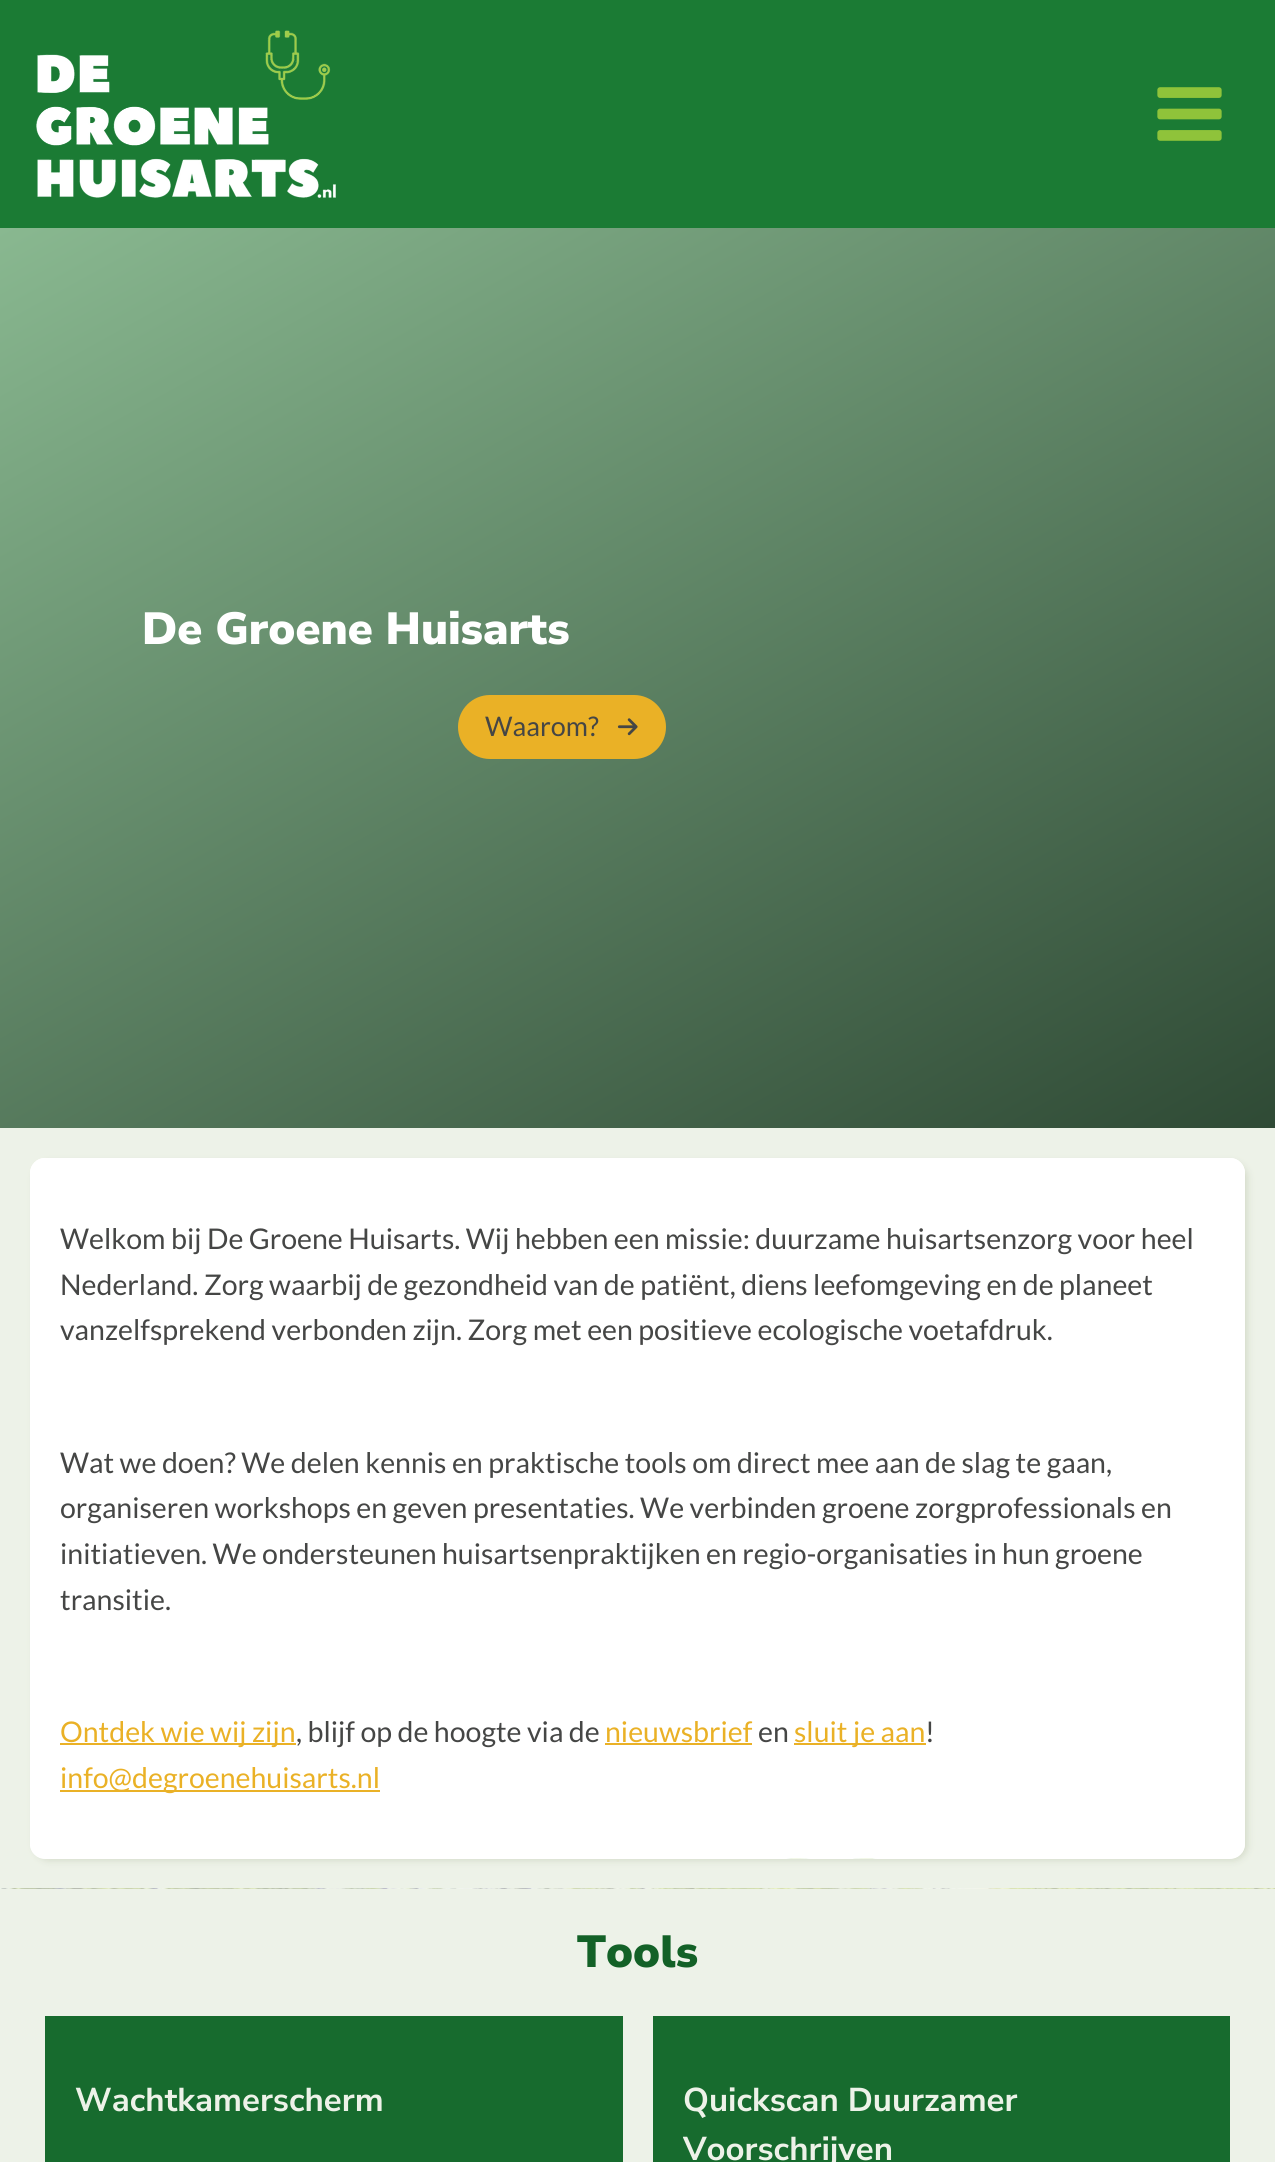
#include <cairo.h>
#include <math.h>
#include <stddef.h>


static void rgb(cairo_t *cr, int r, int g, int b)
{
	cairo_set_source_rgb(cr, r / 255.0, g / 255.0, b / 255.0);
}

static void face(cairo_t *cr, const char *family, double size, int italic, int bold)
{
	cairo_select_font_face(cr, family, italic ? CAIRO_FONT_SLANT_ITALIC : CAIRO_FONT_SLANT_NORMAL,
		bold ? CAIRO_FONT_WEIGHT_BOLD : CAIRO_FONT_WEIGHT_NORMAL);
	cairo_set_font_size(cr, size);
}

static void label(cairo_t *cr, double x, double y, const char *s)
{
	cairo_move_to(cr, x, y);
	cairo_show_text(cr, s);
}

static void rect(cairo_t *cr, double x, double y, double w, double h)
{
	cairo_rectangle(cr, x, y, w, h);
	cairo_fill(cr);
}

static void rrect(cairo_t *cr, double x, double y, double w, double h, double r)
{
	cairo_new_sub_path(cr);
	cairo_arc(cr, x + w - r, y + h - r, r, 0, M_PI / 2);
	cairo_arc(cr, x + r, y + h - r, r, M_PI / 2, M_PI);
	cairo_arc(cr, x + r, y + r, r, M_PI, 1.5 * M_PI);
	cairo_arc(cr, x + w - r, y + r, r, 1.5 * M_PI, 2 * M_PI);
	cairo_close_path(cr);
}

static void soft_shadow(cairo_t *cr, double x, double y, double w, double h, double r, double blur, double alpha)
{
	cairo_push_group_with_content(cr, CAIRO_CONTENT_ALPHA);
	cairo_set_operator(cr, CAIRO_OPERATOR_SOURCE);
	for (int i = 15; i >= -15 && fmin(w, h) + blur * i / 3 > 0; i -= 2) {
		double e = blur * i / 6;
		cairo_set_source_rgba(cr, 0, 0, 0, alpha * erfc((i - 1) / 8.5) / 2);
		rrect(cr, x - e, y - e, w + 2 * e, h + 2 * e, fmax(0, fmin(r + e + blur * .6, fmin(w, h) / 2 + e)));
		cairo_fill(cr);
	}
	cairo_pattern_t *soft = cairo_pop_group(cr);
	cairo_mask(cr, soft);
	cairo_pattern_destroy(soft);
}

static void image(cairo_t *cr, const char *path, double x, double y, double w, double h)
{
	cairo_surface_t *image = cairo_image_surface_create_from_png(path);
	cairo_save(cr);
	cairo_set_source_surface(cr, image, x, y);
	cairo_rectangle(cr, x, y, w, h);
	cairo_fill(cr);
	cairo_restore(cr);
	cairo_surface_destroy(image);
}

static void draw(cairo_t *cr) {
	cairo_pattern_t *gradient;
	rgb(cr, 237, 242, 232);
	cairo_paint(cr);
	rgb(cr, 27, 123, 52);
	rect(cr, 0, 0, 1275, 228);
	image(cr, "image0.png", 36, 30, 300, 168);
	image(cr, "image1.png", 1157, 87, 65, 54);
	gradient = cairo_pattern_create_linear(297, 63, 978, 1293);
	cairo_pattern_add_color_stop_rgba(gradient, 0, 0.537, 0.722, 0.565, 1);
	cairo_pattern_add_color_stop_rgba(gradient, 1, 0.184, 0.29, 0.208, 1);
	cairo_set_source(cr, gradient);
	cairo_pattern_destroy(gradient);
	rect(cr, 0, 228, 1275, 900);
	face(cr, "Nunito Sans Black", 45, 0, 0);
	rgb(cr, 255, 255, 255);
	label(cr, 142, 644, "De Groene Huisarts");
	rgb(cr, 234, 177, 38);
	rrect(cr, 458, 695, 208, 64, 32);
	cairo_fill(cr);
	face(cr, "Lato", 27, 0, 0);
	rgb(cr, 69, 70, 69);
	label(cr, 485, 736, "Waarom?");
	image(cr, "image2.png", 617, 718, 21, 18);
	image(cr, "image3.png", 0, 1888, 1275, 1);
	rgb(cr, 146, 156, 118);
	soft_shadow(cr, 35, 1163, 1212, 697, 14, 4, 0.3);
	rgb(cr, 255, 255, 255);
	rrect(cr, 30, 1158, 1215, 701, 15);
	cairo_fill(cr);
	image(cr, "image4.png", 30, 1158, 1215, 701);
	face(cr, "Lato", 28.5, 0, 0);
	rgb(cr, 69, 70, 69);
	label(cr, 60, 1249, "Welkom bij De Groene Huisarts. Wij hebben een missie: duurzame huisartsenzorg voor heel");
	label(cr, 60, 1295, "Nederland. Zorg waarbij de gezondheid van de patiënt, diens leefomgeving en de planeet");
	label(cr, 60, 1340, "vanzelfsprekend verbonden zijn. Zorg met een positieve ecologische voetafdruk.");
	label(cr, 60, 1473, "Wat we doen? We delen kennis en praktische tools om direct mee aan de slag te gaan,");
	label(cr, 60, 1518, "organiseren workshops en geven presentaties. We verbinden groene zorgprofessionals en");
	label(cr, 60, 1564, "initiatieven. We ondersteunen huisartsenpraktijken en regio-organisaties in hun groene");
	label(cr, 60, 1610, "transitie.");
	rgb(cr, 234, 177, 38);
	rect(cr, 60, 1743, 236, 2);
	label(cr, 60, 1742, "Ontdek wie wij zijn");
	rgb(cr, 69, 70, 69);
	label(cr, 296, 1742, ", blijf op de hoogte via de");
	rgb(cr, 234, 177, 38);
	label(cr, 605, 1742, "nieuwsbrief");
	rect(cr, 605, 1743, 147, 2);
	rgb(cr, 69, 70, 69);
	label(cr, 758, 1742, "en");
	rgb(cr, 234, 177, 38);
	rect(cr, 794, 1743, 132, 2);
	label(cr, 794, 1742, "sluit je aan");
	rgb(cr, 69, 70, 69);
	label(cr, 925, 1742, "!");
	rgb(cr, 234, 177, 38);
	rect(cr, 60, 1790, 320, 2);
	label(cr, 60, 1788, "info@degroenehuisarts.nl");
	face(cr, "Nunito Sans Black", 45, 0, 0);
	rgb(cr, 19, 97, 39);
	label(cr, 577, 1967, "Tools");
	rgb(cr, 23, 107, 46);
	rect(cr, 45, 2016, 578, 146);
	face(cr, "Nunito Sans", 33, 0, 1);
	rgb(cr, 237, 242, 232);
	label(cr, 75, 2111, "Wachtkamerscherm");
	rgb(cr, 23, 107, 46);
	rect(cr, 653, 2016, 577, 146);
	rgb(cr, 237, 242, 232);
	label(cr, 683, 2111, "Quickscan Duurzamer");
	cairo_save(cr);
	cairo_rectangle(cr, 683, 2076, 517, 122);
	cairo_clip(cr);
	label(cr, 683, 2160, "Voorschrijven");
	cairo_restore(cr);
}

int main(void) {
	cairo_surface_t *surface = cairo_image_surface_create(CAIRO_FORMAT_RGB24, 1275, 2162);
	cairo_t *cr = cairo_create(surface);
	cairo_font_options_t *options = cairo_font_options_create();
	cairo_font_options_set_hint_metrics(options, CAIRO_HINT_METRICS_OFF);
	cairo_font_options_set_hint_style(options, CAIRO_HINT_STYLE_NONE);
	cairo_set_font_options(cr, options);
	cairo_set_miter_limit(cr, 4);
	draw(cr);
	cairo_surface_write_to_png(surface, "render.png");
	cairo_font_options_destroy(options);
	cairo_destroy(cr);
	cairo_surface_destroy(surface);
	return 0;
}
